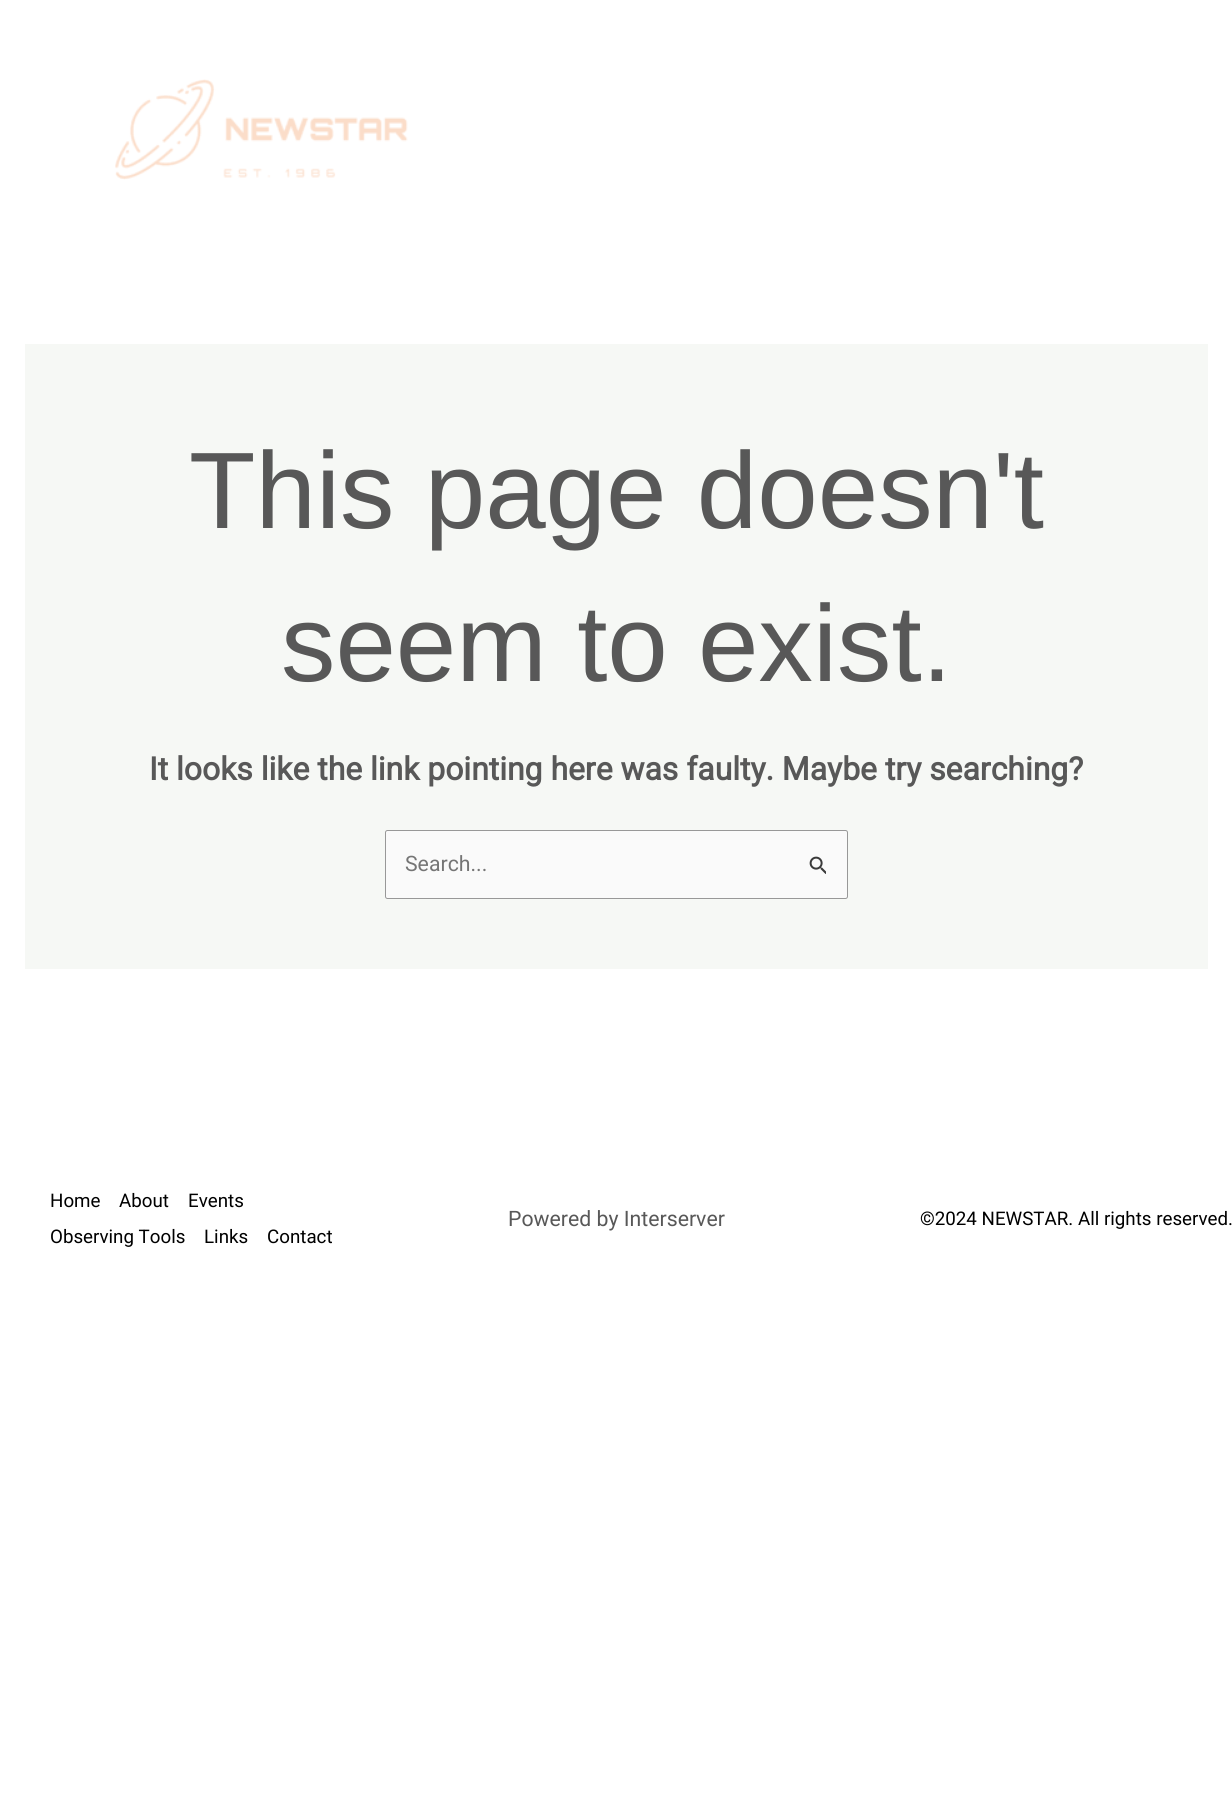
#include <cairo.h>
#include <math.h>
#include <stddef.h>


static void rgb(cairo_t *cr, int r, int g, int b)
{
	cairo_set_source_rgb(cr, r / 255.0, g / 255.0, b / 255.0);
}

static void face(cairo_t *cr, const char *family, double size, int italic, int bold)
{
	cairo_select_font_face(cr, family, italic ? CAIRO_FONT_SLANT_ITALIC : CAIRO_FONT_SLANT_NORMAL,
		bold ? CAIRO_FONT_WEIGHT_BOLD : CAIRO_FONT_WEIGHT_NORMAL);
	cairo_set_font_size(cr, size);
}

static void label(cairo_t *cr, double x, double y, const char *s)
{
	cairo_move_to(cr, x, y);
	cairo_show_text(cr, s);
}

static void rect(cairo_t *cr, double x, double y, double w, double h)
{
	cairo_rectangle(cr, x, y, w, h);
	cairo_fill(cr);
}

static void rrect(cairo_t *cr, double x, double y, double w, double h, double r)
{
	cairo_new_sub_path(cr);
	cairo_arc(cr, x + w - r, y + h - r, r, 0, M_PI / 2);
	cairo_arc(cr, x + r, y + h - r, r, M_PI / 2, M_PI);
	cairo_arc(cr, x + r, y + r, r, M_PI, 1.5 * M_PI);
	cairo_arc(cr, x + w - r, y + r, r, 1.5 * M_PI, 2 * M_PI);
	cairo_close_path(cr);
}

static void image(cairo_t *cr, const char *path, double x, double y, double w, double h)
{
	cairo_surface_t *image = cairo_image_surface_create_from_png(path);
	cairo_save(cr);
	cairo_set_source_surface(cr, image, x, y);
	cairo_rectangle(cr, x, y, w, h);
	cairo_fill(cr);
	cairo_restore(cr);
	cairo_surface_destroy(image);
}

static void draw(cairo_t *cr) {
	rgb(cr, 255, 255, 255);
	cairo_paint(cr);
	image(cr, "image0.png", 115, 79, 293, 101);
	rgb(cr, 246, 248, 245);
	rect(cr, 25, 344, 1183, 625);
	face(cr, "Liberation Sans", 108.75, 0, 0);
	rgb(cr, 88, 88, 88);
	label(cr, 189, 528, "This page doesn't");
	label(cr, 281, 681, "seem to exist.");
	face(cr, "Roboto", 31.9, 0, 1);
	label(cr, 149, 780, "It looks like the link pointing here was faulty. Maybe try searching?");
	rgb(cr, 250, 250, 250);
	rrect(cr, 385.5, 830.5, 462, 68, 2);
	cairo_fill_preserve(cr);
	rgb(cr, 152, 152, 152);
	cairo_set_line_width(cr, 1);
	cairo_stroke(cr);
	face(cr, "Roboto", 21.25, 0, 0);
	rgb(cr, 117, 117, 117);
	label(cr, 405, 871, "Search...");
	image(cr, "image1.png", 809, 856, 17, 18);
	face(cr, "Roboto", 18.75, 0, 0);
	rgb(cr, 0, 0, 0);
	label(cr, 50, 1207, "Home");
	label(cr, 119, 1207, "About");
	label(cr, 188, 1207, "Events");
	label(cr, 50, 1243, "Observing Tools");
	label(cr, 204, 1243, "Links");
	label(cr, 267, 1243, "Contact");
	face(cr, "Roboto", 21.25, 0, 0);
	rgb(cr, 88, 88, 88);
	label(cr, 508, 1226, "Powered by Interserver");
	face(cr, "Roboto", 18.75, 0, 0);
	rgb(cr, 0, 0, 0);
	label(cr, 920, 1225, "©2024 NEWSTAR. All rights reserved.");
}

int main(void) {
	cairo_surface_t *surface = cairo_image_surface_create(CAIRO_FORMAT_RGB24, 1232, 1804);
	cairo_t *cr = cairo_create(surface);
	cairo_font_options_t *options = cairo_font_options_create();
	cairo_font_options_set_hint_metrics(options, CAIRO_HINT_METRICS_OFF);
	cairo_font_options_set_hint_style(options, CAIRO_HINT_STYLE_NONE);
	cairo_set_font_options(cr, options);
	cairo_set_miter_limit(cr, 4);
	draw(cr);
	cairo_surface_write_to_png(surface, "render.png");
	cairo_font_options_destroy(options);
	cairo_destroy(cr);
	cairo_surface_destroy(surface);
	return 0;
}
